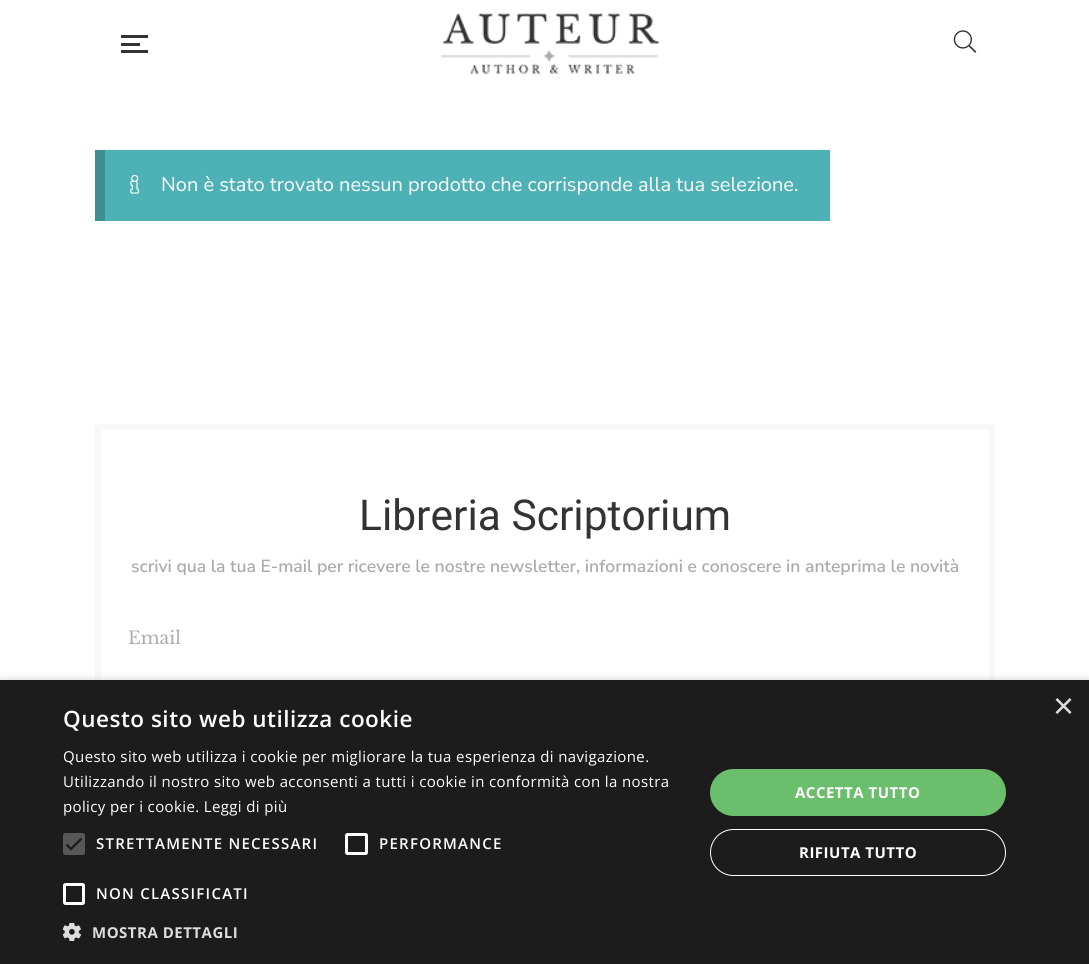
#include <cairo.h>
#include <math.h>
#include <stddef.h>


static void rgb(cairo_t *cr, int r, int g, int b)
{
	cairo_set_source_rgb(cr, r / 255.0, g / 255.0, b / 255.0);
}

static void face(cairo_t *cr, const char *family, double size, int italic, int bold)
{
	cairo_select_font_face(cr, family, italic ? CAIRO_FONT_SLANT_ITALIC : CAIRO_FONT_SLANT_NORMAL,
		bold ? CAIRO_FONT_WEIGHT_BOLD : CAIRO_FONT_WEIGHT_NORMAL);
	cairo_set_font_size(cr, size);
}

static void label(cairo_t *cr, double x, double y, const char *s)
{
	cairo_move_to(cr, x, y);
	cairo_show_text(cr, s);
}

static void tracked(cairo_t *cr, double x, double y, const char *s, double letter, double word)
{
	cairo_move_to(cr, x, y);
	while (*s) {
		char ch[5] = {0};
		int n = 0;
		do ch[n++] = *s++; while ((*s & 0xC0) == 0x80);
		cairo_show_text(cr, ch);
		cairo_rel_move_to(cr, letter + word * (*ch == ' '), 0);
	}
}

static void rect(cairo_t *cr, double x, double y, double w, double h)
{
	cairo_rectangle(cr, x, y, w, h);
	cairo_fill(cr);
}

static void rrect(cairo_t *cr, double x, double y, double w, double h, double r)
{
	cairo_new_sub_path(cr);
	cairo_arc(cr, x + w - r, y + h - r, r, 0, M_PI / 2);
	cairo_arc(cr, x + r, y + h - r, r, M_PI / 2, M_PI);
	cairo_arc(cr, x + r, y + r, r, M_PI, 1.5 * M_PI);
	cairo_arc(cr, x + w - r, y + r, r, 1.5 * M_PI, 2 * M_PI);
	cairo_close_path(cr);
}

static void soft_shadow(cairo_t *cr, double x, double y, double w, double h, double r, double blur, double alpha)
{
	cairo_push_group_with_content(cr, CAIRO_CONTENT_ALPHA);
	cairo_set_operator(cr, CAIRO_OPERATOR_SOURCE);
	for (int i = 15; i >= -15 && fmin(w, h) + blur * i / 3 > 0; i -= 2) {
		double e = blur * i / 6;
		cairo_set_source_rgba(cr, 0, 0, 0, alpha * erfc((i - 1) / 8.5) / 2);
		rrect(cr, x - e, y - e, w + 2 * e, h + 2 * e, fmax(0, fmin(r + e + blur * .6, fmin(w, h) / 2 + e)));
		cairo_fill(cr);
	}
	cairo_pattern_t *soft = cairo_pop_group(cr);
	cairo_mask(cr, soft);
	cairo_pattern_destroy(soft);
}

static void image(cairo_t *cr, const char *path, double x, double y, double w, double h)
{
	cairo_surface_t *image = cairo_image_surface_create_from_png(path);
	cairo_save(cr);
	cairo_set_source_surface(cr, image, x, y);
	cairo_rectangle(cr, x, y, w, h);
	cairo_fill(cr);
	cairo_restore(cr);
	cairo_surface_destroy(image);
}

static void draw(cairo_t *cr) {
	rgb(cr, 255, 255, 255);
	cairo_paint(cr);
	rgb(cr, 51, 51, 51);
	rect(cr, 121, 43, 19, 3);
	rect(cr, 121, 35, 27, 3);
	rect(cr, 121, 50, 27, 3);
	image(cr, "image0.png", 441, 13, 218, 61);
	image(cr, "image1.png", 953, 30, 24, 23);
	rgb(cr, 78, 177, 181);
	rect(cr, 105, 150, 725, 71);
	rgb(cr, 62, 142, 145);
	rect(cr, 95, 150, 10, 71);
	image(cr, "image2.png", 130, 174, 10, 20);
	face(cr, "Nunito Sans", 20, 0, 0);
	rgb(cr, 255, 255, 255);
	label(cr, 161, 191, "Non è stato trovato nessun prodotto che corrisponde alla tua selezione.");
	cairo_rectangle(cr, 98, 427, 894, 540);
	rgb(cr, 248, 248, 248);
	cairo_set_line_width(cr, 6);
	cairo_stroke(cr);
	face(cr, "Roboto", 42.5, 0, 0);
	rgb(cr, 51, 51, 51);
	label(cr, 359, 530, "Libreria Scriptorium");
	face(cr, "Nunito Sans SemiBold", 17.5, 0, 0);
	rgb(cr, 171, 171, 171);
	label(cr, 131, 572, "scrivi qua la tua E-mail per ricevere le nostre newsletter, informazioni e conoscere in anteprima le novità");
	face(cr, "Libre Baskerville", 17.5, 0, 0);
	label(cr, 128, 644, "Email");
	rgb(cr, 0, 0, 0);
	soft_shadow(cr, 1, 683, 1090, 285, 0, 5, 0.35);
	rgb(cr, 28, 28, 28);
	rect(cr, 0, 680, 1089, 284);
	face(cr, "Liberation Sans", 36, 0, 0);
	rgb(cr, 221, 221, 221);
	label(cr, 1053, 718, "×");
	face(cr, "Open Sans SemiBold", 22.5, 0, 0);
	rgb(cr, 255, 255, 255);
	tracked(cr, 63, 727, "Questo sito web utilizza cookie", 0.5, 0);
	face(cr, "Open Sans", 15, 0, 0);
	tracked(cr, 63, 762, "Questo sito web utilizza i cookie per migliorare la tua esperienza di navigazione.", 0.38, 0);
	tracked(cr, 63, 787, "Utilizzando il nostro sito web acconsenti a tutti i cookie in conformità con la nostra", 0.38, 0);
	tracked(cr, 63, 812, "policy per i cookie. Leggi di più", 0.38, 0);
	rgb(cr, 87, 87, 87);
	rrect(cr, 63, 833, 22, 22, 2.5);
	cairo_fill(cr);
	cairo_new_path(cr);
	cairo_move_to(cr, 66.5, 844.5);
	cairo_line_to(cr, 71, 849);
	cairo_line_to(cr, 81.5, 838.5);
	rgb(cr, 28, 28, 28);
	cairo_set_line_width(cr, 2.3);
	cairo_stroke(cr);
	face(cr, "Open Sans SemiBold", 15, 0, 0);
	rgb(cr, 255, 255, 255);
	tracked(cr, 96, 849, "STRETTAMENTE NECESSARI", 1.25, 0);
	rrect(cr, 346.5, 834.5, 20, 19, 1);
	cairo_set_line_width(cr, 3);
	cairo_stroke(cr);
	tracked(cr, 379, 849, "PERFORMANCE", 1.25, 0);
	rrect(cr, 64.5, 884.5, 19, 19, 1);
	cairo_stroke(cr);
	tracked(cr, 96, 899, "NON CLASSIFICATI", 1.25, 0);
	image(cr, "image3.png", 63, 923, 18, 18);
	face(cr, "Open Sans", 15, 0, 1);
	rgb(cr, 221, 221, 221);
	tracked(cr, 92, 938, "MOSTRA DETTAGLI", 0.5, 0);
	rgb(cr, 107, 190, 107);
	rrect(cr, 710, 769, 296, 47, 23.5);
	cairo_fill(cr);
	rgb(cr, 255, 255, 255);
	tracked(cr, 795, 798, "ACCETTA TUTTO", 0.5, 0);
	rrect(cr, 710.5, 829.5, 295, 46, 23);
	cairo_set_line_width(cr, 1);
	cairo_stroke(cr);
	tracked(cr, 799, 858, "RIFIUTA TUTTO", 0.5, 0);
}

int main(void) {
	cairo_surface_t *surface = cairo_image_surface_create(CAIRO_FORMAT_RGB24, 1089, 964);
	cairo_t *cr = cairo_create(surface);
	cairo_font_options_t *options = cairo_font_options_create();
	cairo_font_options_set_hint_metrics(options, CAIRO_HINT_METRICS_OFF);
	cairo_font_options_set_hint_style(options, CAIRO_HINT_STYLE_NONE);
	cairo_set_font_options(cr, options);
	cairo_set_miter_limit(cr, 4);
	draw(cr);
	cairo_surface_write_to_png(surface, "render.png");
	cairo_font_options_destroy(options);
	cairo_destroy(cr);
	cairo_surface_destroy(surface);
	return 0;
}
